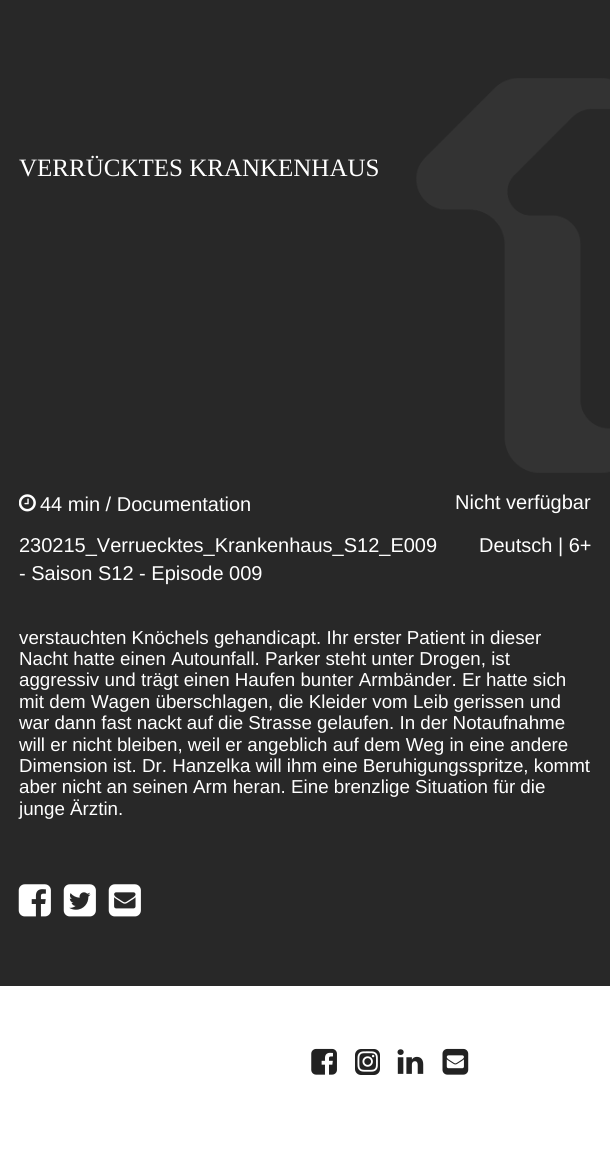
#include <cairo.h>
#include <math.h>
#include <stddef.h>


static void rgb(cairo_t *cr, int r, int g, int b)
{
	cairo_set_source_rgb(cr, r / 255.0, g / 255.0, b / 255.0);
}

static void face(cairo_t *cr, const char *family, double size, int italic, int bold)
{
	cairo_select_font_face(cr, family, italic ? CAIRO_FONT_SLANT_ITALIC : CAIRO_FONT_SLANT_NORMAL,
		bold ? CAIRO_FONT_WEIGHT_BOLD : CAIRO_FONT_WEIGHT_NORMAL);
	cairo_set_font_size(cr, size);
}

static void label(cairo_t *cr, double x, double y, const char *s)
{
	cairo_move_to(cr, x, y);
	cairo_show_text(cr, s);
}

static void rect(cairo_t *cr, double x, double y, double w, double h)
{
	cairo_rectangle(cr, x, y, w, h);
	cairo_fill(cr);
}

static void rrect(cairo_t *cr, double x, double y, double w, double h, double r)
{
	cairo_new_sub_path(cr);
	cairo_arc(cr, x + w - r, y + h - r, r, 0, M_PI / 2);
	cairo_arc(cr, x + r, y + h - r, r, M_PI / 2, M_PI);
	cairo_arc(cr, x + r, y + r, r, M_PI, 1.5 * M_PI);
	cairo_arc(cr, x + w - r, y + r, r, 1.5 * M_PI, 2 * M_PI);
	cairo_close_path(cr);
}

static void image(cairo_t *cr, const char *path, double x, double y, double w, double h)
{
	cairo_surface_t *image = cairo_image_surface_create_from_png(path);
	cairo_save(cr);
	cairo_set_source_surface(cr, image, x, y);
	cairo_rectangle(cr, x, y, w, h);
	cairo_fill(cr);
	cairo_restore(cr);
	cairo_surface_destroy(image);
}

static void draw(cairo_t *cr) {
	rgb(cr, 40, 40, 40);
	cairo_paint(cr);
	image(cr, "image0.png", 416, 78, 194, 395);
	face(cr, "Liberation Serif", 25, 0, 0);
	rgb(cr, 255, 255, 255);
	label(cr, 19, 176, "VERRÜCKTES KRANKENHAUS");
	image(cr, "image1.png", 19, 494, 17, 18);
	face(cr, "Liberation Sans", 20, 0, 0);
	label(cr, 40, 511, "44 min / Documentation");
	label(cr, 455, 509, "Nicht verfügbar");
	label(cr, 19, 552, "230215_Verruecktes_Krankenhaus_S12_E009");
	label(cr, 19, 580, "- Saison S12 - Episode 009");
	label(cr, 479, 552, "Deutsch | 6+");
	face(cr, "Liberation Sans", 18.75, 0, 0);
	label(cr, 19, 644, "verstauchten Knöchels gehandicapt. Ihr erster Patient in dieser");
	label(cr, 19, 665, "Nacht hatte einen Autounfall. Parker steht unter Drogen, ist");
	label(cr, 19, 686, "aggressiv und trägt einen Haufen bunter Armbänder. Er hatte sich");
	label(cr, 19, 708, "mit dem Wagen überschlagen, die Kleider vom Leib gerissen und");
	label(cr, 19, 729, "war dann fast nackt auf die Strasse gelaufen. In der Notaufnahme");
	label(cr, 19, 751, "will er nicht bleiben, weil er angeblich auf dem Weg in eine andere");
	label(cr, 19, 772, "Dimension ist. Dr. Hanzelka will ihm eine Beruhigungsspritze, kommt");
	label(cr, 19, 793, "aber nicht an seinen Arm heran. Eine brenzlige Situation für die");
	label(cr, 19, 815, "junge Ärztin.");
	image(cr, "image2.png", 18, 884, 33, 33);
	image(cr, "image3.png", 63, 884, 33, 33);
	image(cr, "image4.png", 108, 884, 33, 33);
	rect(cr, 0, 986, 610, 180);
	image(cr, "image5.png", 311, 1048, 26, 27);
	rgb(cr, 34, 34, 34);
	rrect(cr, 355, 1049, 25, 26, 6);
	cairo_fill(cr);
	image(cr, "image6.png", 357, 1051, 21, 21);
	image(cr, "image7.png", 397, 1049, 27, 25);
	image(cr, "image8.png", 442, 1048, 27, 27);
}

int main(void) {
	cairo_surface_t *surface = cairo_image_surface_create(CAIRO_FORMAT_RGB24, 610, 1166);
	cairo_t *cr = cairo_create(surface);
	cairo_font_options_t *options = cairo_font_options_create();
	cairo_font_options_set_hint_metrics(options, CAIRO_HINT_METRICS_OFF);
	cairo_font_options_set_hint_style(options, CAIRO_HINT_STYLE_NONE);
	cairo_set_font_options(cr, options);
	cairo_set_miter_limit(cr, 4);
	draw(cr);
	cairo_surface_write_to_png(surface, "render.png");
	cairo_font_options_destroy(options);
	cairo_destroy(cr);
	cairo_surface_destroy(surface);
	return 0;
}
